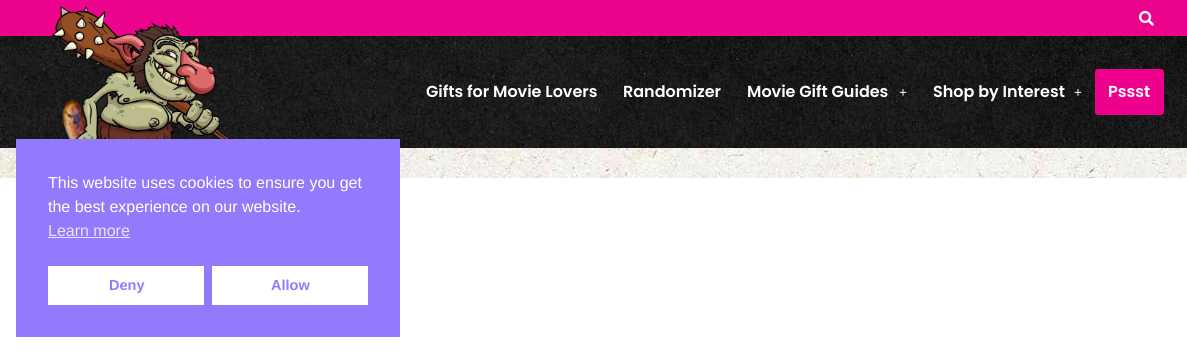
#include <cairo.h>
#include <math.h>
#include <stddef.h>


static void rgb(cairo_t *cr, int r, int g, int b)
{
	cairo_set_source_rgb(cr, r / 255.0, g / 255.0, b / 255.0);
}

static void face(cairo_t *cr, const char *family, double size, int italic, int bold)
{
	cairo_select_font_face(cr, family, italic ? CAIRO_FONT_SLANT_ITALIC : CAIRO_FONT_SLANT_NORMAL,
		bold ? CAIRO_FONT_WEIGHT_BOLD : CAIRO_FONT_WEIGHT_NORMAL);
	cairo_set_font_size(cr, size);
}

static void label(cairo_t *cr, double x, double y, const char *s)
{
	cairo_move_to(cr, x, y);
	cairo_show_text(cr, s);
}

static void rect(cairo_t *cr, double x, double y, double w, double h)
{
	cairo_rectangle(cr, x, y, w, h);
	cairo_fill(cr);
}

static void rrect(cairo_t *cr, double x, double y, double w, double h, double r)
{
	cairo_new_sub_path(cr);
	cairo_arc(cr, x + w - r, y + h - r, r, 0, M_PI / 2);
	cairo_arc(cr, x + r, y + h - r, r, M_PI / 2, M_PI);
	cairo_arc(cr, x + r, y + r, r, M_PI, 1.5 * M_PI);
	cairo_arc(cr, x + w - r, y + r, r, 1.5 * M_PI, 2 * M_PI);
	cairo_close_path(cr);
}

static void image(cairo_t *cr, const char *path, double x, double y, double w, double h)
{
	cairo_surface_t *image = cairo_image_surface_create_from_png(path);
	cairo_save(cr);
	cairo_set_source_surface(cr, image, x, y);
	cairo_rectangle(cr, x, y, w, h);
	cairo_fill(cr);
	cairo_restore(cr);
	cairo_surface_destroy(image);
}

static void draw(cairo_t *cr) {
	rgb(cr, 255, 255, 255);
	cairo_paint(cr);
	rgb(cr, 236, 4, 140);
	rect(cr, 0, 0, 1187, 36);
	image(cr, "image0.png", 1139, 10, 15, 16);
	image(cr, "image1.png", 0, 36, 1187, 112);
	image(cr, "image2.png", 51, 6, 181, 133);
	face(cr, "Poppins SemiBold", 16, 0, 0);
	rgb(cr, 255, 255, 255);
	label(cr, 426, 97, "Gifts for Movie Lovers");
	label(cr, 623, 97, "Randomizer");
	label(cr, 747, 97, "Movie Gift Guides");
	face(cr, "Liberation Serif", 14, 0, 1);
	label(cr, 899, 97, "+");
	face(cr, "Poppins SemiBold", 16, 0, 0);
	label(cr, 933, 97, "Shop by Interest");
	face(cr, "Liberation Serif", 14, 0, 1);
	label(cr, 1074, 97, "+");
	rgb(cr, 236, 0, 140);
	rrect(cr, 1095, 69, 69, 46, 3);
	cairo_fill(cr);
	face(cr, "Poppins SemiBold", 16, 0, 0);
	rgb(cr, 255, 255, 255);
	label(cr, 1108, 97, "Pssst");
	image(cr, "image3.png", 0, 148, 1187, 30);
	rgb(cr, 147, 122, 252);
	rect(cr, 16, 139, 384, 198);
	face(cr, "Liberation Sans", 16, 0, 0);
	rgb(cr, 255, 255, 255);
	label(cr, 48, 188, "This website uses cookies to ensure you get");
	label(cr, 48, 212, "the best experience on our website.");
	rgb(cr, 233, 228, 254);
	label(cr, 48, 236, "Learn more");
	rect(cr, 48, 237, 82, 1);
	rgb(cr, 255, 255, 255);
	rect(cr, 48, 266, 156, 39);
	face(cr, "Liberation Sans", 14.5, 0, 1);
	rgb(cr, 147, 122, 252);
	label(cr, 109, 290, "Deny");
	rgb(cr, 255, 255, 255);
	rect(cr, 212, 266, 156, 39);
	rgb(cr, 147, 122, 252);
	label(cr, 271, 290, "Allow");
}

int main(void) {
	cairo_surface_t *surface = cairo_image_surface_create(CAIRO_FORMAT_RGB24, 1187, 353);
	cairo_t *cr = cairo_create(surface);
	cairo_font_options_t *options = cairo_font_options_create();
	cairo_font_options_set_hint_metrics(options, CAIRO_HINT_METRICS_OFF);
	cairo_font_options_set_hint_style(options, CAIRO_HINT_STYLE_NONE);
	cairo_set_font_options(cr, options);
	cairo_set_miter_limit(cr, 4);
	draw(cr);
	cairo_surface_write_to_png(surface, "render.png");
	cairo_font_options_destroy(options);
	cairo_destroy(cr);
	cairo_surface_destroy(surface);
	return 0;
}
